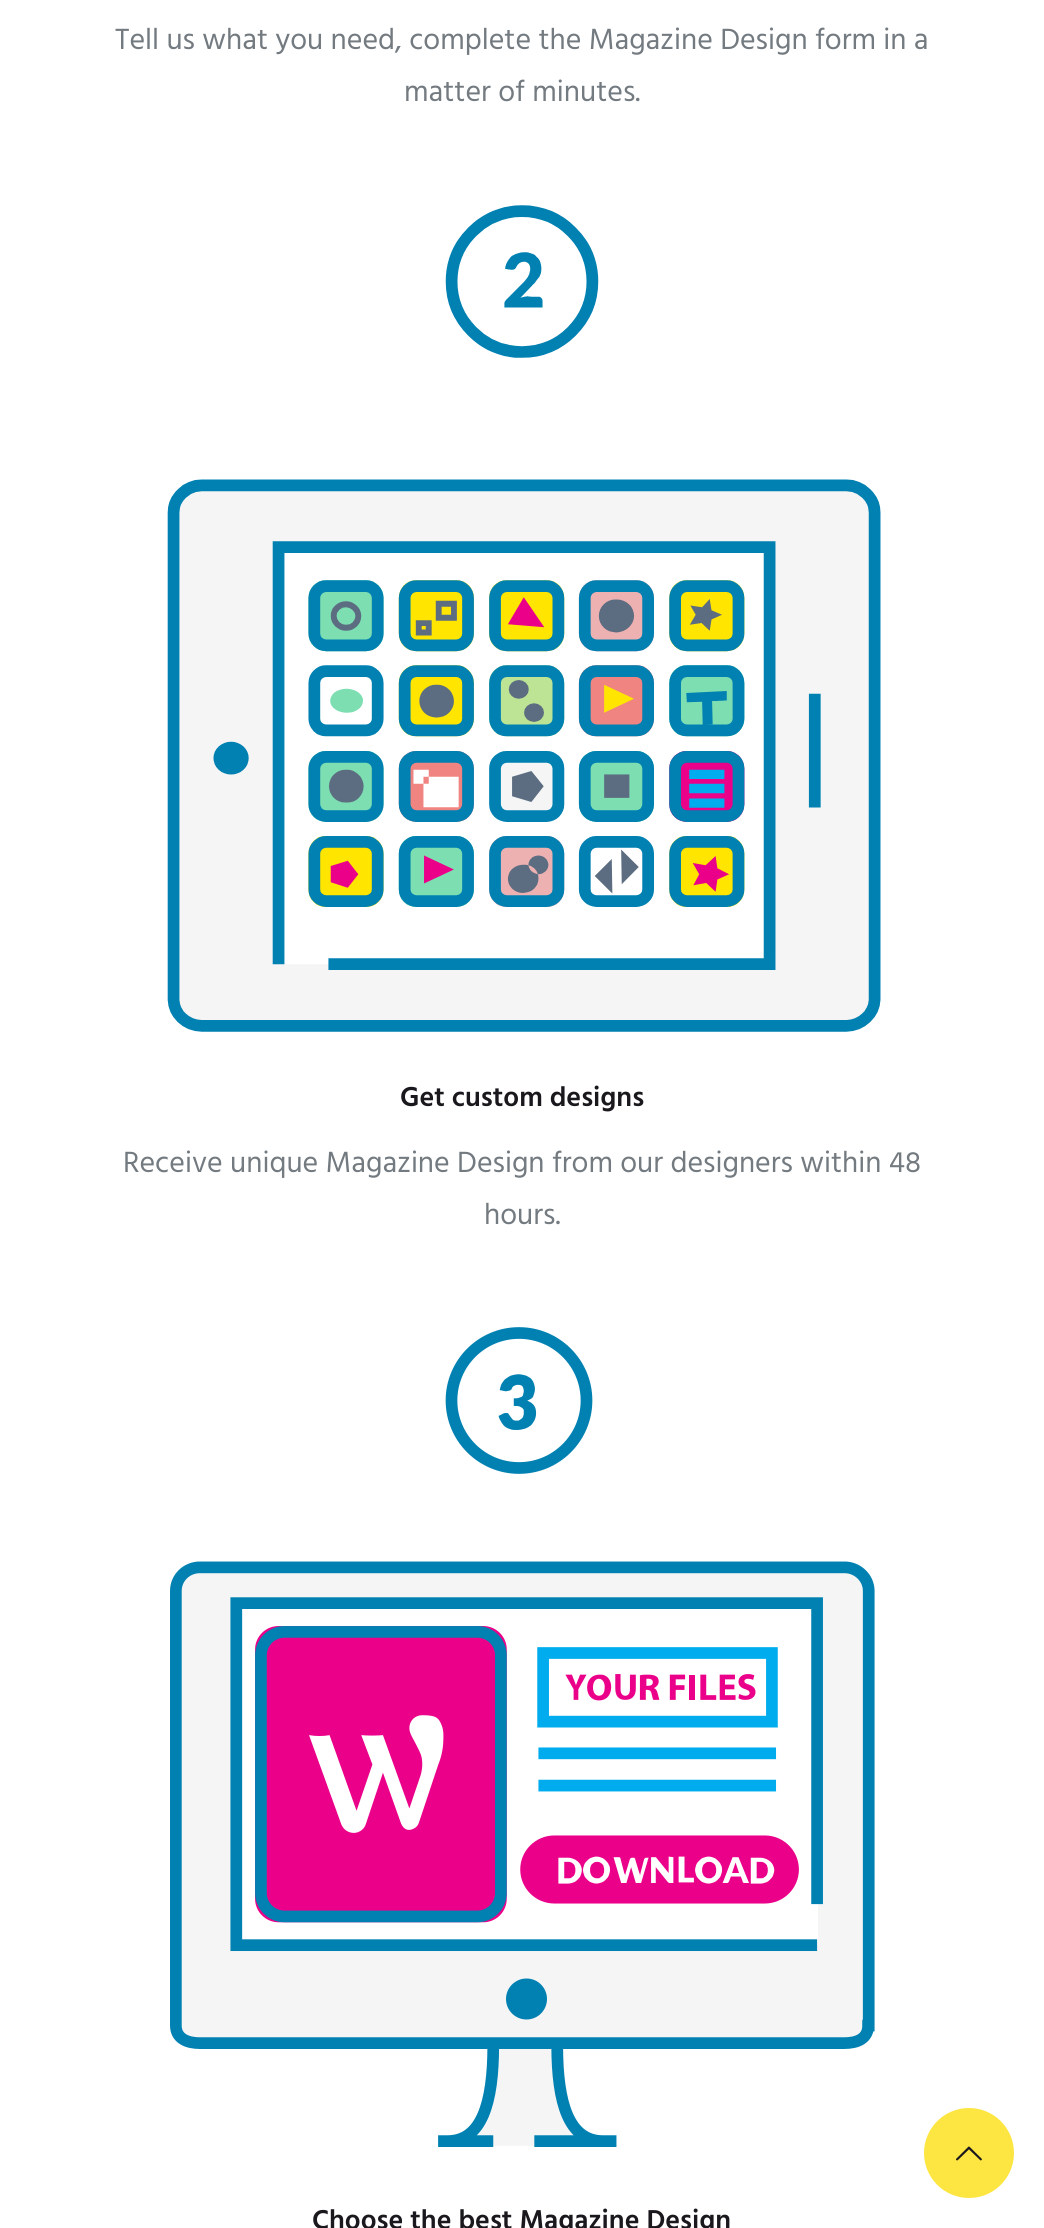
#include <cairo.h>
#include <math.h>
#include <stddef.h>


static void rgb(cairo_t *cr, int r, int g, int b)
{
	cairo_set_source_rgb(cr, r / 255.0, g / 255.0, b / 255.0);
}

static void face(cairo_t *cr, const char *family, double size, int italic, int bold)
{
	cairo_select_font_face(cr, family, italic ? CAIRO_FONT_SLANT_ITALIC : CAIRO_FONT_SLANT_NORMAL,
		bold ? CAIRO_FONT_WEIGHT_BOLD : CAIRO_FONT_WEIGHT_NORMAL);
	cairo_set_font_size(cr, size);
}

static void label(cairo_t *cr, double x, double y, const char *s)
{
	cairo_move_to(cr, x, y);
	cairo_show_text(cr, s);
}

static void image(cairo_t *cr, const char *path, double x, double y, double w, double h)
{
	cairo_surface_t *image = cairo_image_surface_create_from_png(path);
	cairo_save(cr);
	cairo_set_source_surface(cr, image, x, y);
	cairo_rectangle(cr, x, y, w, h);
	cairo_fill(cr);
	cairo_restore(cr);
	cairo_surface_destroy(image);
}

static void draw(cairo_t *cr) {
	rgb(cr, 255, 255, 255);
	cairo_paint(cr);
	face(cr, "Hind", 30, 0, 0);
	rgb(cr, 115, 122, 128);
	label(cr, 115, 49, "Tell us what you need, complete the Magazine Design form in a");
	label(cr, 404, 101, "matter of minutes.");
	image(cr, "image0.png", 167, 205, 714, 827);
	face(cr, "Hind SemiBold", 28, 0, 0);
	rgb(cr, 26, 24, 29);
	label(cr, 400, 1106, "Get custom designs");
	face(cr, "Hind", 30, 0, 0);
	rgb(cr, 115, 122, 128);
	label(cr, 123, 1172, "Receive unique Magazine Design from our designers within 48");
	label(cr, 484, 1224, "hours.");
	image(cr, "image1.png", 170, 1327, 705, 820);
	face(cr, "Hind SemiBold", 28, 0, 0);
	rgb(cr, 26, 24, 29);
	label(cr, 312, 2229, "Choose the best Magazine Design");
	rgb(cr, 253, 230, 66);
	cairo_new_path(cr);
	cairo_arc(cr, 969, 2153, 45, 0, 2 * M_PI);
	cairo_fill(cr);
	image(cr, "image2.png", 956, 2146, 26, 15);
}

int main(void) {
	cairo_surface_t *surface = cairo_image_surface_create(CAIRO_FORMAT_RGB24, 1044, 2228);
	cairo_t *cr = cairo_create(surface);
	cairo_font_options_t *options = cairo_font_options_create();
	cairo_font_options_set_hint_metrics(options, CAIRO_HINT_METRICS_OFF);
	cairo_font_options_set_hint_style(options, CAIRO_HINT_STYLE_NONE);
	cairo_set_font_options(cr, options);
	cairo_set_miter_limit(cr, 4);
	draw(cr);
	cairo_surface_write_to_png(surface, "render.png");
	cairo_font_options_destroy(options);
	cairo_destroy(cr);
	cairo_surface_destroy(surface);
	return 0;
}
